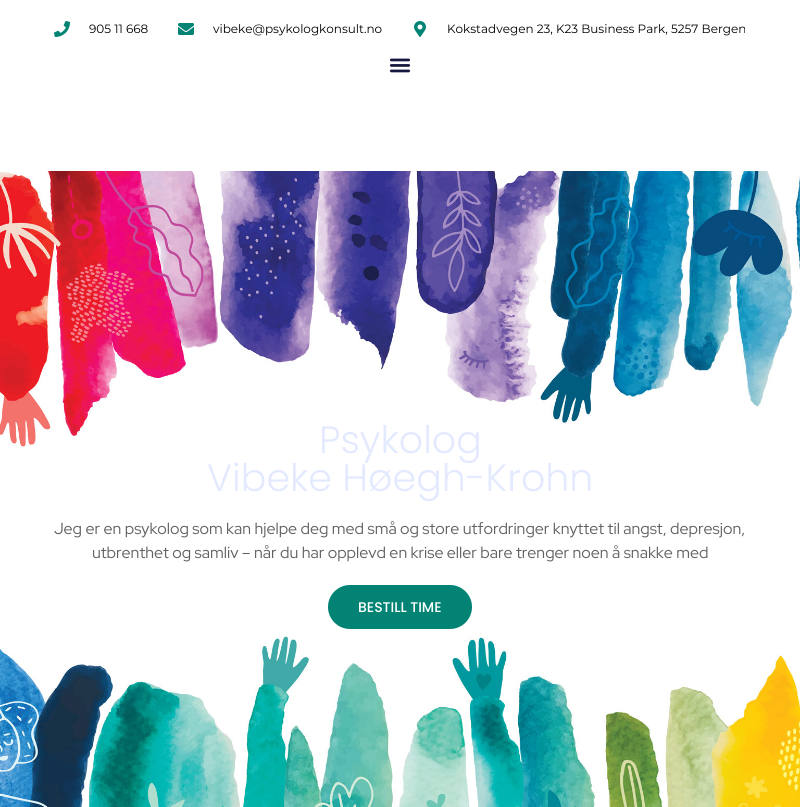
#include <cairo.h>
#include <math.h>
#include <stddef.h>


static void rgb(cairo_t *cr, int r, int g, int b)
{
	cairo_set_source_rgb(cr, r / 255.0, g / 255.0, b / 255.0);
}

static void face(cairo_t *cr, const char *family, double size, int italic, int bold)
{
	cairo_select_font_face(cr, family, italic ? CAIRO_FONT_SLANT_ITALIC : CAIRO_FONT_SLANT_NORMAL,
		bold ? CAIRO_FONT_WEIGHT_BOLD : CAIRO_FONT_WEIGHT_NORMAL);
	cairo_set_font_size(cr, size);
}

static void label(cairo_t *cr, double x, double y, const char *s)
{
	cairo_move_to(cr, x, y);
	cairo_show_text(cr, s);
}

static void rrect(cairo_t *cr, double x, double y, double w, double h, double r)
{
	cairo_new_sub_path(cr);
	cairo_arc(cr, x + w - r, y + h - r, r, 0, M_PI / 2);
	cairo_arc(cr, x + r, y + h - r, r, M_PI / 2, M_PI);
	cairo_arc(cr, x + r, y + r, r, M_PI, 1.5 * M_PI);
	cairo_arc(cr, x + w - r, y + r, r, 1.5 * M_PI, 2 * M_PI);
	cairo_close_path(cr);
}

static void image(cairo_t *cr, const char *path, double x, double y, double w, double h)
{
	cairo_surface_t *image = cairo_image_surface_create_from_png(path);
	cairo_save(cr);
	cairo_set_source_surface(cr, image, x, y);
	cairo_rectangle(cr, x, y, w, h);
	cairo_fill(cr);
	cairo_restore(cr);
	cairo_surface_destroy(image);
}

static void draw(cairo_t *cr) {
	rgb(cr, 255, 255, 255);
	cairo_paint(cr);
	image(cr, "image0.png", 54, 21, 16, 16);
	face(cr, "Montserrat", 12, 0, 0);
	rgb(cr, 0, 0, 0);
	label(cr, 89, 33, "905 11 668");
	image(cr, "image1.png", 178, 23, 16, 12);
	label(cr, 213, 33, "vibeke@psykologkonsult.no");
	image(cr, "image2.png", 414, 21, 12, 16);
	label(cr, 447, 33, "Kokstadvegen 23, K23 Business Park, 5257 Bergen");
	image(cr, "image3.png", 389, 58, 22, 15);
	image(cr, "image4.png", 0, 171, 800, 636);
	face(cr, "Poppins Light", 38, 0, 0);
	rgb(cr, 227, 233, 255);
	label(cr, 319, 453, "Psykolog");
	label(cr, 207, 491, "Vibeke Høegh-Krohn");
	face(cr, "Red Hat Display", 16, 0, 0);
	rgb(cr, 100, 96, 96);
	label(cr, 54, 534, "Jeg er en psykolog som kan hjelpe deg med små og store utfordringer knyttet til angst, depresjon,");
	label(cr, 92, 558, "utbrenthet og samliv – når du har opplevd en krise eller bare trenger noen å snakke med");
	rgb(cr, 3, 131, 116);
	rrect(cr, 328, 585, 144, 44, 22);
	cairo_fill(cr);
	face(cr, "Poppins Medium", 14, 0, 0);
	rgb(cr, 255, 255, 255);
	label(cr, 358, 612, "BESTILL TIME");
}

int main(void) {
	cairo_surface_t *surface = cairo_image_surface_create(CAIRO_FORMAT_RGB24, 800, 807);
	cairo_t *cr = cairo_create(surface);
	cairo_font_options_t *options = cairo_font_options_create();
	cairo_font_options_set_hint_metrics(options, CAIRO_HINT_METRICS_OFF);
	cairo_font_options_set_hint_style(options, CAIRO_HINT_STYLE_NONE);
	cairo_set_font_options(cr, options);
	cairo_set_miter_limit(cr, 4);
	draw(cr);
	cairo_surface_write_to_png(surface, "render.png");
	cairo_font_options_destroy(options);
	cairo_destroy(cr);
	cairo_surface_destroy(surface);
	return 0;
}
